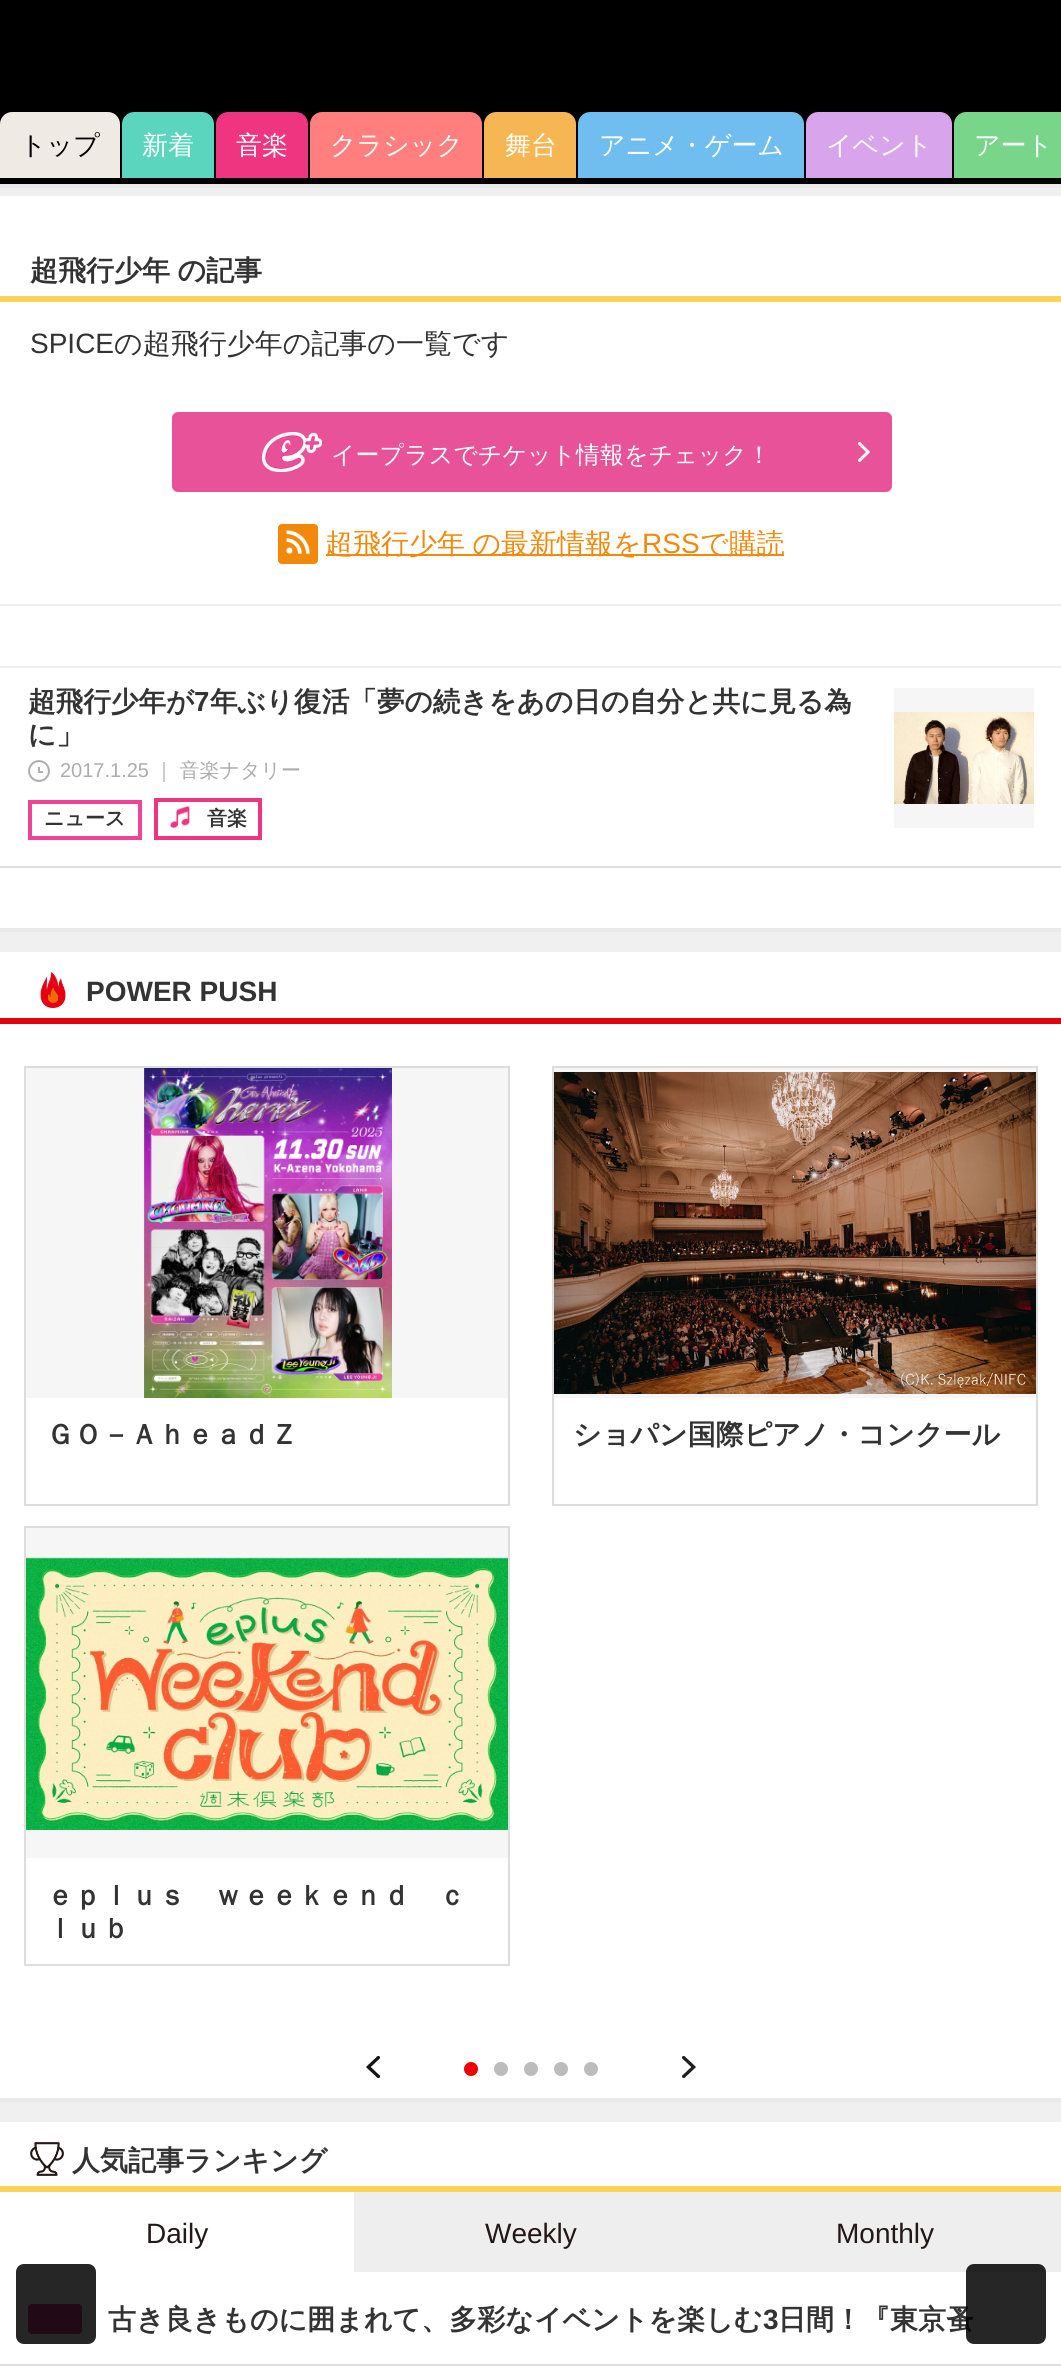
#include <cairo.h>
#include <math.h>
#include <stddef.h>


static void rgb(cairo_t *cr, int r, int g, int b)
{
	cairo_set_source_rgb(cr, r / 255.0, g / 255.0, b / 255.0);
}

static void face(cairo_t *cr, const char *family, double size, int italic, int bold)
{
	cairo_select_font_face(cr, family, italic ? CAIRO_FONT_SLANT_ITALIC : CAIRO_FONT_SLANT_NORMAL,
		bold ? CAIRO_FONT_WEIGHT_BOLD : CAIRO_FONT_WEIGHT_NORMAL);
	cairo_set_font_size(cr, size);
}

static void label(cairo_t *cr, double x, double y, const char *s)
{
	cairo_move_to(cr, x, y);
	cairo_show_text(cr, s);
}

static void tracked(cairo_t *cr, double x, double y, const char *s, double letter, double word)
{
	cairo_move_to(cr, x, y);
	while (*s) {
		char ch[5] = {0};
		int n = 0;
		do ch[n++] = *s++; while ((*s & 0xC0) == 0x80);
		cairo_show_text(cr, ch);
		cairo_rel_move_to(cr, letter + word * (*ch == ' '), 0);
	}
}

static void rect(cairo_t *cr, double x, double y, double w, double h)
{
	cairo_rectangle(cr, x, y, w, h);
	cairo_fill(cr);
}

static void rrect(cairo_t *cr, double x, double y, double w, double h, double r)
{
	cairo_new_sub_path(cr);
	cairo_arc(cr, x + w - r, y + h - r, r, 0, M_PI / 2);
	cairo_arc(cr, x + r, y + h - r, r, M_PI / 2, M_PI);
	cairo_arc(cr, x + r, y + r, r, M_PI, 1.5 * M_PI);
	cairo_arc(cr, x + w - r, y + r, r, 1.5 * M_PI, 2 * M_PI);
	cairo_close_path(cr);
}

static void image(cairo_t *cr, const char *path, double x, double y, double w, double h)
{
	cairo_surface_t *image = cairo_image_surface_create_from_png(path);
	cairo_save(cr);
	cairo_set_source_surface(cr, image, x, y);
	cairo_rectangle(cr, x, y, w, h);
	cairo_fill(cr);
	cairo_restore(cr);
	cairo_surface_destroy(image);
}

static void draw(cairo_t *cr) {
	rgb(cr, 240, 240, 240);
	cairo_paint(cr);
	rgb(cr, 233, 233, 233);
	cairo_new_path(cr);
	cairo_move_to(cr, -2, 100);
	cairo_line_to(cr, -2, 188);
	cairo_line_to(cr, 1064, 188);
	cairo_line_to(cr, 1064, 100);
	cairo_line_to(cr, 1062, 100);
	cairo_line_to(cr, 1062, 184);
	cairo_line_to(cr, 0, 184);
	cairo_line_to(cr, 0, 100);
	cairo_close_path(cr);
	cairo_fill(cr);
	rgb(cr, 0, 0, 0);
	rect(cr, 0, 0, 1061, 184);
	rgb(cr, 239, 234, 227);
	cairo_new_path(cr);
	cairo_move_to(cr, 12, 112);
	cairo_line_to(cr, 108, 112);
	cairo_curve_to(cr, 114.5, 112, 120, 117.5, 120, 124);
	cairo_line_to(cr, 120, 178);
	cairo_line_to(cr, 0, 178);
	cairo_line_to(cr, 0, 124);
	cairo_curve_to(cr, 0, 117.5, 5.5, 112, 12, 112);
	cairo_close_path(cr);
	cairo_fill(cr);
	face(cr, "WenQuanYi Zen Hei Medium", 26, 0, 0);
	rgb(cr, 0, 0, 0);
	label(cr, 20, 154, "トップ");
	rgb(cr, 91, 213, 190);
	cairo_new_path(cr);
	cairo_move_to(cr, 134, 112);
	cairo_line_to(cr, 202, 112);
	cairo_curve_to(cr, 208.5, 112, 214, 117.5, 214, 124);
	cairo_line_to(cr, 214, 178);
	cairo_line_to(cr, 122, 178);
	cairo_line_to(cr, 122, 124);
	cairo_curve_to(cr, 122, 117.5, 127.5, 112, 134, 112);
	cairo_close_path(cr);
	cairo_fill(cr);
	rgb(cr, 255, 255, 255);
	label(cr, 142, 154, "新着");
	rgb(cr, 239, 53, 127);
	cairo_new_path(cr);
	cairo_move_to(cr, 228, 112);
	cairo_line_to(cr, 296, 112);
	cairo_curve_to(cr, 302.5, 112, 308, 117.5, 308, 124);
	cairo_line_to(cr, 308, 178);
	cairo_line_to(cr, 216, 178);
	cairo_line_to(cr, 216, 124);
	cairo_curve_to(cr, 216, 117.5, 221.5, 112, 228, 112);
	cairo_close_path(cr);
	cairo_fill(cr);
	rgb(cr, 255, 255, 255);
	label(cr, 236, 154, "音楽");
	rgb(cr, 255, 127, 127);
	cairo_new_path(cr);
	cairo_move_to(cr, 322, 112);
	cairo_line_to(cr, 470, 112);
	cairo_curve_to(cr, 476.5, 112, 482, 117.5, 482, 124);
	cairo_line_to(cr, 482, 178);
	cairo_line_to(cr, 310, 178);
	cairo_line_to(cr, 310, 124);
	cairo_curve_to(cr, 310, 117.5, 315.5, 112, 322, 112);
	cairo_close_path(cr);
	cairo_fill(cr);
	rgb(cr, 255, 255, 255);
	label(cr, 330, 154, "クラシック");
	rgb(cr, 246, 182, 84);
	cairo_new_path(cr);
	cairo_move_to(cr, 496, 112);
	cairo_line_to(cr, 564, 112);
	cairo_curve_to(cr, 570.5, 112, 576, 117.5, 576, 124);
	cairo_line_to(cr, 576, 178);
	cairo_line_to(cr, 484, 178);
	cairo_line_to(cr, 484, 124);
	cairo_curve_to(cr, 484, 117.5, 489.5, 112, 496, 112);
	cairo_close_path(cr);
	cairo_fill(cr);
	rgb(cr, 255, 255, 255);
	label(cr, 505, 154, "舞台");
	rgb(cr, 112, 190, 239);
	cairo_new_path(cr);
	cairo_move_to(cr, 590, 112);
	cairo_line_to(cr, 792, 112);
	cairo_curve_to(cr, 798.5, 112, 804, 117.5, 804, 124);
	cairo_line_to(cr, 804, 178);
	cairo_line_to(cr, 578, 178);
	cairo_line_to(cr, 578, 124);
	cairo_curve_to(cr, 578, 117.5, 583.5, 112, 590, 112);
	cairo_close_path(cr);
	cairo_fill(cr);
	rgb(cr, 255, 255, 255);
	label(cr, 599, 154, "アニメ・ゲーム");
	rgb(cr, 216, 165, 237);
	cairo_new_path(cr);
	cairo_move_to(cr, 818, 112);
	cairo_line_to(cr, 940, 112);
	cairo_curve_to(cr, 946.5, 112, 952, 117.5, 952, 124);
	cairo_line_to(cr, 952, 178);
	cairo_line_to(cr, 806, 178);
	cairo_line_to(cr, 806, 124);
	cairo_curve_to(cr, 806, 117.5, 811.5, 112, 818, 112);
	cairo_close_path(cr);
	cairo_fill(cr);
	rgb(cr, 255, 255, 255);
	label(cr, 826, 154, "イベント");
	rgb(cr, 121, 213, 137);
	cairo_new_path(cr);
	cairo_move_to(cr, 966, 112);
	cairo_line_to(cr, 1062, 112);
	cairo_line_to(cr, 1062, 178);
	cairo_line_to(cr, 954, 178);
	cairo_line_to(cr, 954, 124);
	cairo_curve_to(cr, 954, 117.5, 959.5, 112, 966, 112);
	cairo_close_path(cr);
	cairo_fill(cr);
	rgb(cr, 255, 255, 255);
	label(cr, 974, 154, "アート");
	rgb(cr, 233, 233, 233);
	cairo_new_path(cr);
	cairo_move_to(cr, -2, 196);
	cairo_line_to(cr, -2, 932);
	cairo_line_to(cr, 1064, 932);
	cairo_line_to(cr, 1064, 196);
	cairo_line_to(cr, 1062, 196);
	cairo_line_to(cr, 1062, 928);
	cairo_line_to(cr, 0, 928);
	cairo_line_to(cr, 0, 196);
	cairo_close_path(cr);
	cairo_fill(cr);
	rgb(cr, 255, 255, 255);
	rect(cr, 0, 196, 1061, 732);
	rgb(cr, 254, 210, 87);
	rect(cr, 0, 296, 1061, 6);
	face(cr, "WenQuanYi Zen Hei", 28, 0, 1);
	rgb(cr, 51, 51, 51);
	tracked(cr, 30, 280, "超飛行少年 の記事", 0, -1);
	face(cr, "Liberation Sans", 28, 0, 0);
	label(cr, 30, 353, "SPICE");
	face(cr, "WenQuanYi Zen Hei Medium", 28, 0, 0);
	label(cr, 114, 353, "の超飛行少年の記事の一覧です");
	rgb(cr, 238, 238, 238);
	rect(cr, 0, 666, 1061, 2);
	rgb(cr, 232, 82, 153);
	rrect(cr, 173, 413, 718, 78, 5);
	cairo_fill_preserve(cr);
	cairo_stroke(cr);
	image(cr, "image0.png", 262, 432, 60, 40);
	face(cr, "WenQuanYi Zen Hei Medium", 24, 0, 0);
	rgb(cr, 255, 255, 255);
	label(cr, 331, 463, "イープラスでチケット情報をチェック！");
	image(cr, "image1.png", 858, 442, 12, 20);
	rgb(cr, 242, 137, 10);
	rrect(cr, 278, 524, 40, 40, 4);
	cairo_fill(cr);
	image(cr, "image2.png", 286, 530, 24, 24);
	rect(cr, 326, 554, 458, 2);
	face(cr, "WenQuanYi Zen Hei Medium", 28, 0, 0);
	tracked(cr, 325, 553, "超飛行少年 の最新情報を", 0, -1);
	face(cr, "Liberation Sans", 28, 0, 0);
	label(cr, 642, 553, "RSS");
	face(cr, "WenQuanYi Zen Hei Medium", 28, 0, 0);
	label(cr, 700, 553, "で購読");
	rgb(cr, 238, 238, 238);
	rect(cr, 0, 604, 1061, 2);
	rgb(cr, 221, 221, 221);
	rect(cr, 0, 866, 1061, 2);
	face(cr, "WenQuanYi Zen Hei", 27.6, 0, 1);
	rgb(cr, 51, 51, 51);
	label(cr, 28, 711, "超飛行少年が");
	face(cr, "Liberation Sans", 27.6, 0, 1);
	label(cr, 194, 711, "7");
	face(cr, "WenQuanYi Zen Hei", 27.6, 0, 1);
	label(cr, 210, 711, "年ぶり復活「夢の続きをあの日の自分と共に見る為");
	label(cr, 28, 744, "に」");
	image(cr, "image3.png", 28, 760, 22, 22);
	face(cr, "Liberation Sans", 20, 0, 0);
	rgb(cr, 172, 172, 172);
	label(cr, 60, 777, "2017.1.25");
	face(cr, "WenQuanYi Zen Hei Medium", 20, 0, 0);
	label(cr, 154, 777, "｜ 音楽ナタリー");
	cairo_rectangle(cr, 30, 802, 110, 36);
	rgb(cr, 240, 69, 150);
	cairo_set_line_width(cr, 4);
	cairo_stroke(cr);
	face(cr, "WenQuanYi Zen Hei", 20, 0, 1);
	rgb(cr, 51, 51, 51);
	label(cr, 44, 825, "ニュース");
	cairo_rectangle(cr, 156, 800, 104, 38);
	rgb(cr, 239, 53, 127);
	cairo_stroke(cr);
	image(cr, "image4.png", 170, 806, 20, 22);
	rgb(cr, 51, 51, 51);
	label(cr, 207, 825, "音楽");
	rgb(cr, 246, 246, 246);
	rect(cr, 894, 688, 140, 140);
	image(cr, "image5.png", 894, 712, 140, 92);
	rgb(cr, 233, 233, 233);
	cairo_new_path(cr);
	cairo_move_to(cr, -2, 952);
	cairo_line_to(cr, -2, 2102);
	cairo_line_to(cr, 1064, 2102);
	cairo_line_to(cr, 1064, 952);
	cairo_line_to(cr, 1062, 952);
	cairo_line_to(cr, 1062, 2098);
	cairo_line_to(cr, 0, 2098);
	cairo_line_to(cr, 0, 952);
	cairo_close_path(cr);
	cairo_fill(cr);
	rgb(cr, 255, 255, 255);
	rect(cr, 0, 952, 1061, 1146);
	rgb(cr, 228, 2, 13);
	rect(cr, 0, 1018, 1061, 6);
	image(cr, "image6.png", 40, 972, 26, 36);
	face(cr, "Liberation Sans", 28, 0, 1);
	rgb(cr, 51, 51, 51);
	label(cr, 86, 1001, "POWER PUSH");
	cairo_rectangle(cr, 25, 1067, 484, 438);
	rgb(cr, 221, 221, 221);
	cairo_set_line_width(cr, 2);
	cairo_stroke(cr);
	rgb(cr, 246, 246, 246);
	rect(cr, 26, 1068, 482, 330);
	image(cr, "image7.png", 144, 1068, 248, 330);
	face(cr, "WenQuanYi Zen Hei", 28, 0, 1);
	rgb(cr, 51, 51, 51);
	label(cr, 46, 1444, "ＧＯ－ＡｈｅａｄＺ");
	cairo_rectangle(cr, 553, 1067, 484, 438);
	rgb(cr, 221, 221, 221);
	cairo_stroke(cr);
	rgb(cr, 246, 246, 246);
	rect(cr, 554, 1068, 482, 330);
	image(cr, "image8.png", 554, 1072, 482, 322);
	rgb(cr, 51, 51, 51);
	label(cr, 573, 1444, "ショパン国際ピアノ・コンクール");
	cairo_rectangle(cr, 25, 1527, 484, 438);
	rgb(cr, 221, 221, 221);
	cairo_stroke(cr);
	rgb(cr, 246, 246, 246);
	rect(cr, 26, 1528, 482, 330);
	image(cr, "image9.png", 26, 1557, 482, 273);
	rgb(cr, 51, 51, 51);
	label(cr, 46, 1905, "ｅｐｌｕｓ　ｗｅｅｋｅｎｄ　ｃ");
	label(cr, 46, 1938, "ｌｕｂ");
	image(cr, "image10.png", 366, 2056, 14, 22);
	rgb(cr, 239, 0, 6);
	cairo_arc(cr, 471, 2069, 7, 0, 2 * M_PI);
	cairo_fill(cr);
	rgb(cr, 188, 188, 188);
	cairo_arc(cr, 501, 2069, 7, 0, 2 * M_PI);
	cairo_fill(cr);
	cairo_arc(cr, 531, 2069, 7, 0, 2 * M_PI);
	cairo_fill(cr);
	cairo_arc(cr, 561, 2069, 7, 0, 2 * M_PI);
	cairo_fill(cr);
	cairo_arc(cr, 591, 2069, 7, 0, 2 * M_PI);
	cairo_fill(cr);
	image(cr, "image11.png", 682, 2056, 14, 22);
	rgb(cr, 255, 255, 255);
	rect(cr, 0, 2122, 1061, 252);
	rgb(cr, 254, 210, 87);
	rect(cr, 0, 2186, 1061, 6);
	image(cr, "image12.png", 30, 2142, 34, 34);
	rgb(cr, 51, 51, 51);
	label(cr, 72, 2170, "人気記事ランキング");
	face(cr, "Liberation Sans", 28, 0, 0);
	rgb(cr, 35, 24, 21);
	label(cr, 146, 2243, "Daily");
	rgb(cr, 238, 238, 238);
	rect(cr, 354, 2192, 707, 80);
	rgb(cr, 35, 24, 21);
	label(cr, 485, 2243, "Weekly");
	label(cr, 836, 2243, "Monthly");
	rgb(cr, 221, 221, 221);
	rect(cr, 0, 2364, 1061, 2);
	rgb(cr, 224, 58, 144);
	rrect(cr, 28, 2304, 54, 30, 4);
	cairo_fill(cr);
	face(cr, "WenQuanYi Zen Hei", 28, 0, 1);
	rgb(cr, 51, 51, 51);
	label(cr, 108, 2329, "古き良きものに囲まれて、多彩なイベントを楽しむ");
	face(cr, "Liberation Sans", 28, 0, 1);
	label(cr, 763, 2329, "3");
	face(cr, "WenQuanYi Zen Hei", 28, 0, 1);
	label(cr, 778, 2329, "日間！『東京蚤");
	cairo_set_source_rgba(cr, 0, 0, 0, 0.85);
	rrect(cr, 16, 2264, 80, 80, 8);
	cairo_fill(cr);
	rrect(cr, 966, 2264, 80, 80, 8);
	cairo_fill(cr);
}

int main(void) {
	cairo_surface_t *surface = cairo_image_surface_create(CAIRO_FORMAT_RGB24, 1061, 2374);
	cairo_t *cr = cairo_create(surface);
	cairo_font_options_t *options = cairo_font_options_create();
	cairo_font_options_set_hint_metrics(options, CAIRO_HINT_METRICS_OFF);
	cairo_font_options_set_hint_style(options, CAIRO_HINT_STYLE_NONE);
	cairo_set_font_options(cr, options);
	cairo_set_miter_limit(cr, 4);
	draw(cr);
	cairo_surface_write_to_png(surface, "render.png");
	cairo_font_options_destroy(options);
	cairo_destroy(cr);
	cairo_surface_destroy(surface);
	return 0;
}
